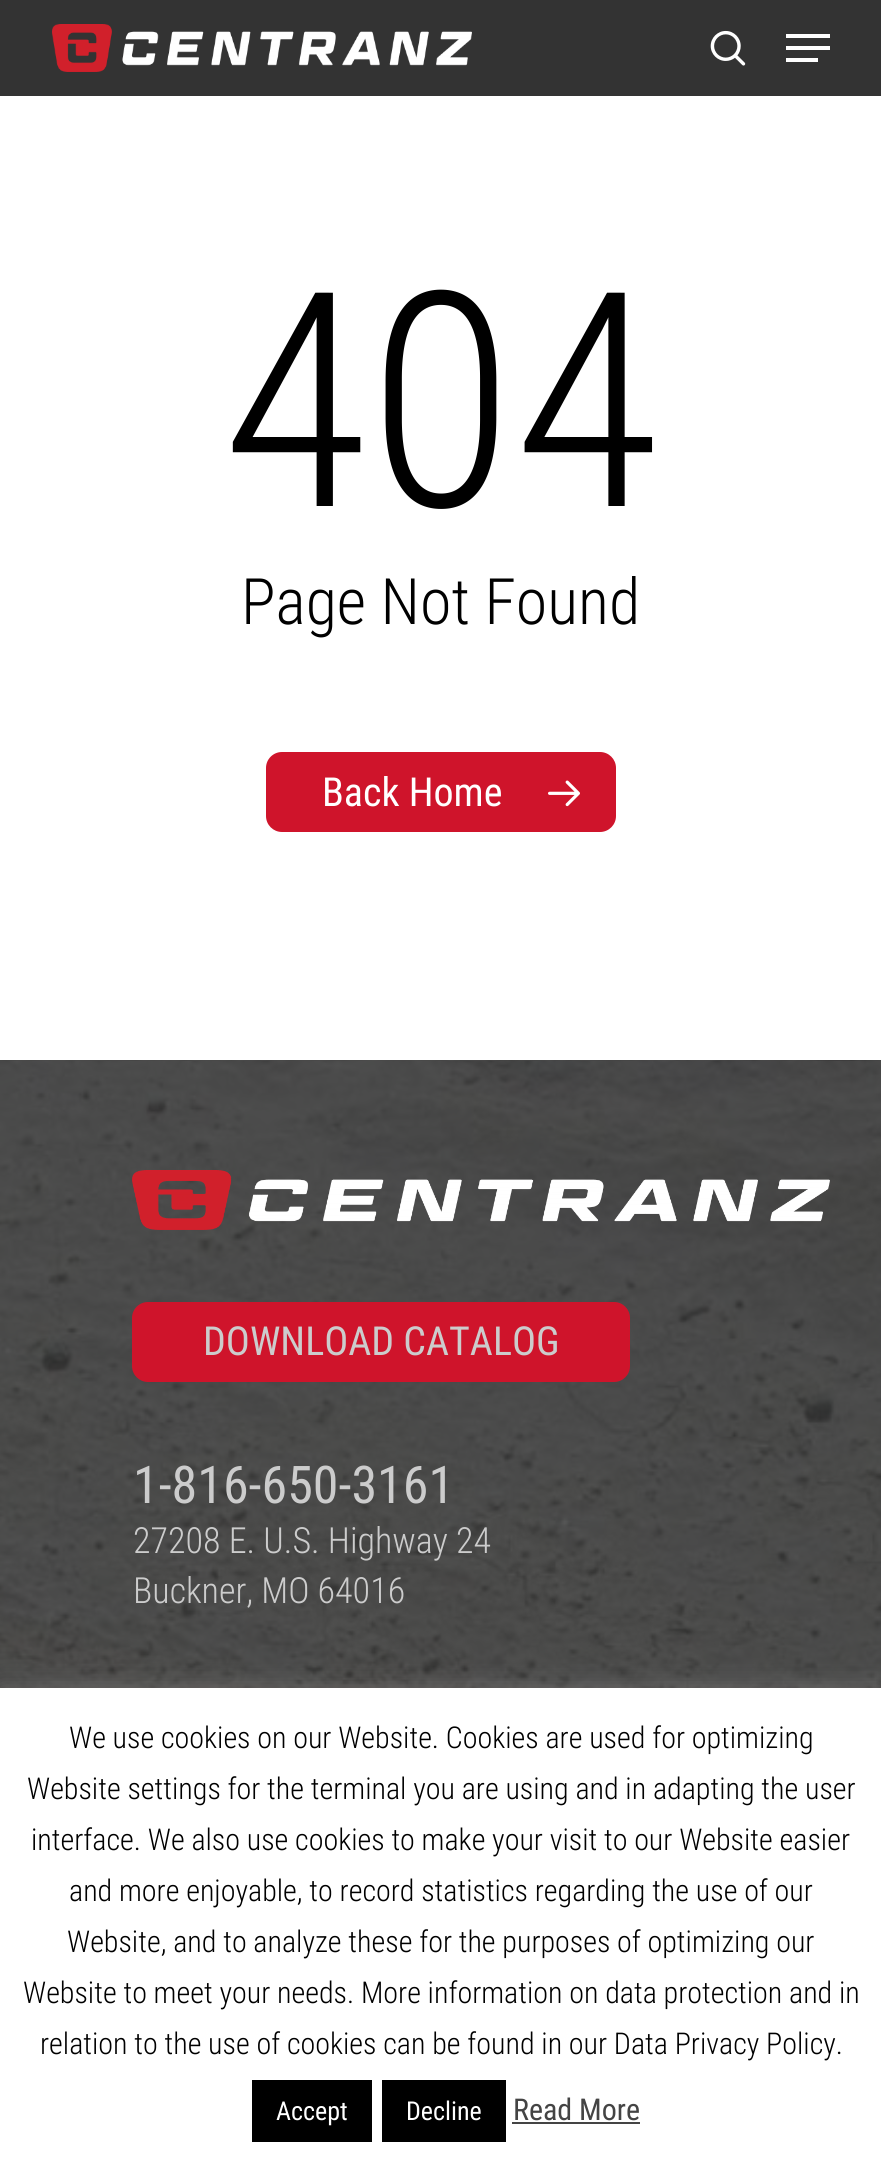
#include <cairo.h>
#include <math.h>
#include <stddef.h>


static void rgb(cairo_t *cr, int r, int g, int b)
{
	cairo_set_source_rgb(cr, r / 255.0, g / 255.0, b / 255.0);
}

static void face(cairo_t *cr, const char *family, double size, int italic, int bold)
{
	cairo_select_font_face(cr, family, italic ? CAIRO_FONT_SLANT_ITALIC : CAIRO_FONT_SLANT_NORMAL,
		bold ? CAIRO_FONT_WEIGHT_BOLD : CAIRO_FONT_WEIGHT_NORMAL);
	cairo_set_font_size(cr, size);
}

static void label(cairo_t *cr, double x, double y, const char *s)
{
	cairo_move_to(cr, x, y);
	cairo_show_text(cr, s);
}

static void rect(cairo_t *cr, double x, double y, double w, double h)
{
	cairo_rectangle(cr, x, y, w, h);
	cairo_fill(cr);
}

static void rrect(cairo_t *cr, double x, double y, double w, double h, double r)
{
	cairo_new_sub_path(cr);
	cairo_arc(cr, x + w - r, y + h - r, r, 0, M_PI / 2);
	cairo_arc(cr, x + r, y + h - r, r, M_PI / 2, M_PI);
	cairo_arc(cr, x + r, y + r, r, M_PI, 1.5 * M_PI);
	cairo_arc(cr, x + w - r, y + r, r, 1.5 * M_PI, 2 * M_PI);
	cairo_close_path(cr);
}

static void soft_shadow(cairo_t *cr, double x, double y, double w, double h, double r, double blur, double alpha)
{
	cairo_push_group_with_content(cr, CAIRO_CONTENT_ALPHA);
	cairo_set_operator(cr, CAIRO_OPERATOR_SOURCE);
	for (int i = 15; i >= -15 && fmin(w, h) + blur * i / 3 > 0; i -= 2) {
		double e = blur * i / 6;
		cairo_set_source_rgba(cr, 0, 0, 0, alpha * erfc((i - 1) / 8.5) / 2);
		rrect(cr, x - e, y - e, w + 2 * e, h + 2 * e, fmax(0, fmin(r + e + blur * .6, fmin(w, h) / 2 + e)));
		cairo_fill(cr);
	}
	cairo_pattern_t *soft = cairo_pop_group(cr);
	cairo_mask(cr, soft);
	cairo_pattern_destroy(soft);
}

static void image(cairo_t *cr, const char *path, double x, double y, double w, double h)
{
	cairo_surface_t *image = cairo_image_surface_create_from_png(path);
	cairo_save(cr);
	cairo_set_source_surface(cr, image, x, y);
	cairo_rectangle(cr, x, y, w, h);
	cairo_fill(cr);
	cairo_restore(cr);
	cairo_surface_destroy(image);
}

static void draw(cairo_t *cr) {
	rgb(cr, 255, 255, 255);
	cairo_paint(cr);
	rgb(cr, 51, 51, 51);
	rect(cr, 0, 0, 881, 96);
	image(cr, "image0.png", 52, 24, 420, 48);
	image(cr, "image1.png", 710, 30, 36, 36);
	rgb(cr, 255, 255, 255);
	rect(cr, 786, 34, 44, 4);
	rect(cr, 786, 58, 32, 4);
	rect(cr, 786, 46, 44, 4);
	face(cr, "Roboto Condensed Light", 300, 0, 0);
	rgb(cr, 0, 0, 0);
	label(cr, 222, 506, "404");
	face(cr, "Roboto Condensed Light", 64, 0, 0);
	label(cr, 241, 624, "Page Not Found");
	rgb(cr, 207, 20, 43);
	rrect(cr, 266, 752, 350, 80, 16);
	cairo_fill(cr);
	face(cr, "Roboto Condensed", 40, 0, 0);
	rgb(cr, 255, 255, 255);
	label(cr, 322, 806, "Back Home");
	image(cr, "image2.png", 548, 780, 32, 27);
	image(cr, "image3.png", 0, 1060, 881, 628);
	image(cr, "image4.png", 132, 1170, 698, 60);
	rgb(cr, 207, 20, 43);
	rrect(cr, 132, 1302, 498, 80, 16);
	cairo_fill(cr);
	rgb(cr, 204, 204, 204);
	label(cr, 203, 1355, "DOWNLOAD CATALOG");
	face(cr, "Roboto Condensed", 52, 0, 0);
	label(cr, 133, 1503, "1-816-650-3161");
	face(cr, "Roboto Condensed Light", 36, 0, 0);
	label(cr, 133, 1553, "27208 E. U.S. Highway 24");
	label(cr, 133, 1603, "Buckner, MO 64016");
	rgb(cr, 172, 171, 171);
	soft_shadow(cr, 0, 1686, 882, 478, 0, 10, 0.3);
	rgb(cr, 255, 255, 255);
	rect(cr, 0, 1688, 881, 477);
	face(cr, "Roboto Condensed Light", 30, 0, 0);
	rgb(cr, 0, 0, 0);
	label(cr, 69, 1748, "We use cookies on our Website. Cookies are used for optimizing");
	label(cr, 27, 1799, "Website settings for the terminal you are using and in adapting the user");
	label(cr, 31, 1850, "interface. We also use cookies to make your visit to our Website easier");
	label(cr, 69, 1901, "and more enjoyable, to record statistics regarding the use of our");
	label(cr, 67, 1952, "Website, and to analyze these for the purposes of optimizing our");
	label(cr, 23, 2003, "Website to meet your needs. More information on data protection and in");
	label(cr, 40, 2054, "relation to the use of cookies can be found in our Data Privacy Policy.");
	rect(cr, 252, 2080, 120, 62);
	face(cr, "Roboto Condensed", 26, 0, 0);
	rgb(cr, 255, 255, 255);
	label(cr, 276, 2120, "Accept");
	rgb(cr, 0, 0, 0);
	rect(cr, 382, 2080, 124, 62);
	rgb(cr, 255, 255, 255);
	label(cr, 406, 2120, "Decline");
	face(cr, "Roboto Condensed", 30, 0, 0);
	rgb(cr, 68, 68, 68);
	label(cr, 513, 2120, "Read More");
	rect(cr, 512, 2122, 128, 2);
}

int main(void) {
	cairo_surface_t *surface = cairo_image_surface_create(CAIRO_FORMAT_RGB24, 881, 2165);
	cairo_t *cr = cairo_create(surface);
	cairo_font_options_t *options = cairo_font_options_create();
	cairo_font_options_set_hint_metrics(options, CAIRO_HINT_METRICS_OFF);
	cairo_font_options_set_hint_style(options, CAIRO_HINT_STYLE_NONE);
	cairo_set_font_options(cr, options);
	cairo_set_miter_limit(cr, 4);
	draw(cr);
	cairo_surface_write_to_png(surface, "render.png");
	cairo_font_options_destroy(options);
	cairo_destroy(cr);
	cairo_surface_destroy(surface);
	return 0;
}
